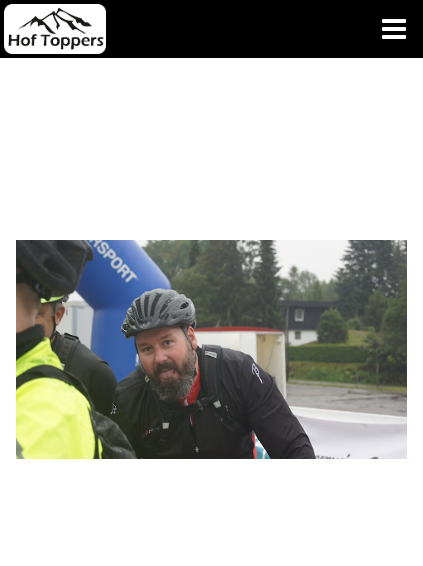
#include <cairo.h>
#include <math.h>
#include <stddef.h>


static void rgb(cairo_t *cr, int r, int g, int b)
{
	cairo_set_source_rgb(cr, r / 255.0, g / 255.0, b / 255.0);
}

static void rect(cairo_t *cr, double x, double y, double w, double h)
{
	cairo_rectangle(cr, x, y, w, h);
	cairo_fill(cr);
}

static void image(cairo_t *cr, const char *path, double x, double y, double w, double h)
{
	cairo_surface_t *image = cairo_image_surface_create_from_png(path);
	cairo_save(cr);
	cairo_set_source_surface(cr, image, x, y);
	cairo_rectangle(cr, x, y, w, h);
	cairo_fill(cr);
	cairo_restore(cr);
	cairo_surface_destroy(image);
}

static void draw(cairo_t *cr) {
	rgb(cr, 255, 255, 255);
	cairo_paint(cr);
	rgb(cr, 0, 0, 0);
	rect(cr, 0, 0, 423, 58);
	image(cr, "image0.png", 4, 4, 102, 50);
	image(cr, "image1.png", 382, 19, 24, 20);
	image(cr, "image2.png", 16, 240, 391, 219);
}

int main(void) {
	cairo_surface_t *surface = cairo_image_surface_create(CAIRO_FORMAT_RGB24, 423, 566);
	cairo_t *cr = cairo_create(surface);
	cairo_font_options_t *options = cairo_font_options_create();
	cairo_font_options_set_hint_metrics(options, CAIRO_HINT_METRICS_OFF);
	cairo_font_options_set_hint_style(options, CAIRO_HINT_STYLE_NONE);
	cairo_set_font_options(cr, options);
	cairo_set_miter_limit(cr, 4);
	draw(cr);
	cairo_surface_write_to_png(surface, "render.png");
	cairo_font_options_destroy(options);
	cairo_destroy(cr);
	cairo_surface_destroy(surface);
	return 0;
}
